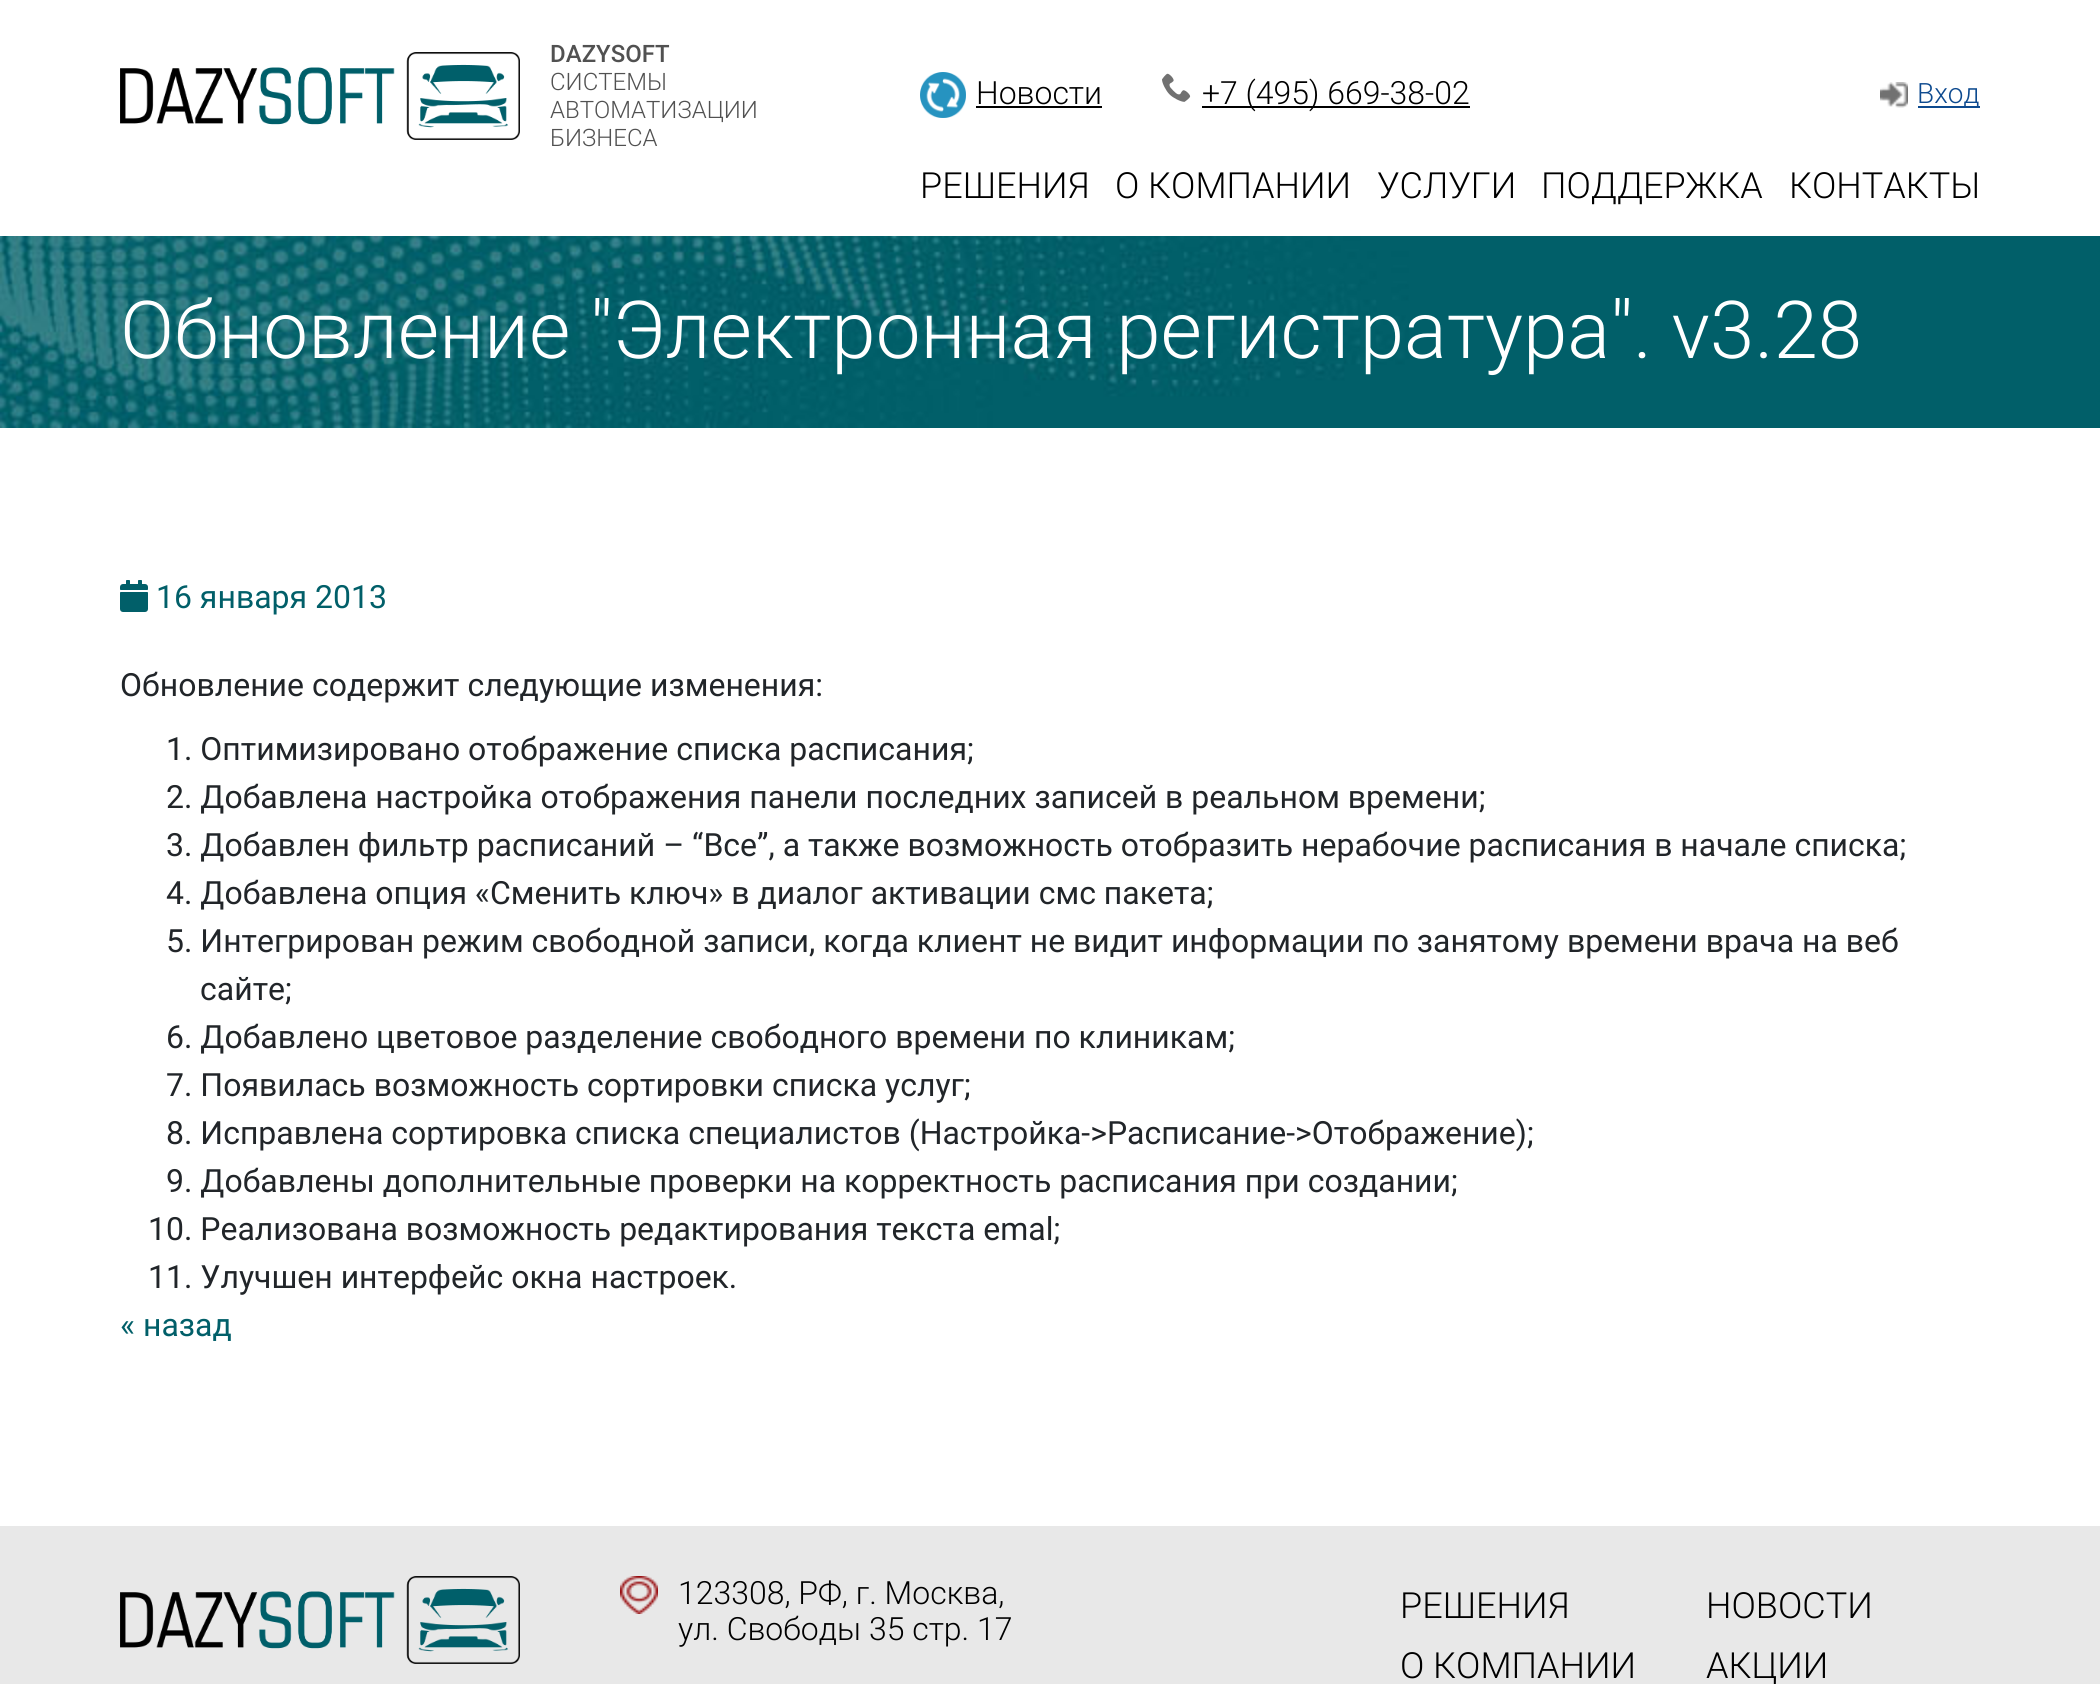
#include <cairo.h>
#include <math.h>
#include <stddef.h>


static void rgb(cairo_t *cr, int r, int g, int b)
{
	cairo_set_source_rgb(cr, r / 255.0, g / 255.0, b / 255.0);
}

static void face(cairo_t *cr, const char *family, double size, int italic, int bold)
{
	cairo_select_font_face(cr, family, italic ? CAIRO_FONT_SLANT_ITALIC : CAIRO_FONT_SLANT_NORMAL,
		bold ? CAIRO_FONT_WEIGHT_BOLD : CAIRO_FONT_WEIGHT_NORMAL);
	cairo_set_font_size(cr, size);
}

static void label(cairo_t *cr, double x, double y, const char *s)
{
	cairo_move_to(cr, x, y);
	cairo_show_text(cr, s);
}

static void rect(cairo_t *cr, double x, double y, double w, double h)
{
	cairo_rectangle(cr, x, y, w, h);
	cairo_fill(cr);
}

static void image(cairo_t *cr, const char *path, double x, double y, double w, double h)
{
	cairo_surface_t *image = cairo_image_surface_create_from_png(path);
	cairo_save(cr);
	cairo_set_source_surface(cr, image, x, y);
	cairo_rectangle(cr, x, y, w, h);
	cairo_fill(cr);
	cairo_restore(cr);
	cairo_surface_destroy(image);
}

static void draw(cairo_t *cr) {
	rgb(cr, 255, 255, 255);
	cairo_paint(cr);
	image(cr, "image0.png", 120, 52, 400, 88);
	face(cr, "Roboto Medium", 24, 0, 0);
	rgb(cr, 81, 81, 81);
	label(cr, 550, 62, "DAZYSOFT");
	face(cr, "Roboto Light", 24, 0, 0);
	label(cr, 550, 90, "СИСТЕМЫ");
	label(cr, 550, 118, "АВТОМАТИЗАЦИИ");
	label(cr, 550, 146, "БИЗНЕСА");
	image(cr, "image1.png", 920, 72, 46, 46);
	face(cr, "Roboto Light", 32, 0, 0);
	rgb(cr, 0, 0, 0);
	label(cr, 976, 104, "Новости");
	rect(cr, 976, 106, 126, 2);
	image(cr, "image2.png", 1162, 73, 29, 29);
	rect(cr, 1202, 106, 268, 2);
	label(cr, 1202, 104, "+7 (495) 669-38-02");
	image(cr, "image3.png", 1880, 82, 28, 26);
	rgb(cr, 13, 74, 143);
	rect(cr, 1918, 106, 62, 2);
	face(cr, "Roboto Light", 28, 0, 0);
	label(cr, 1917, 103, "Вход");
	face(cr, "Roboto Light", 36, 0, 0);
	rgb(cr, 0, 0, 0);
	label(cr, 920, 198, "РЕШЕНИЯ");
	label(cr, 1115, 198, "О КОМПАНИИ");
	label(cr, 1377, 198, "УСЛУГИ");
	label(cr, 1541, 198, "ПОДДЕРЖКА");
	label(cr, 1789, 198, "КОНТАКТЫ");
	image(cr, "image4.png", 0, 236, 2100, 192);
	face(cr, "Roboto Light", 80, 0, 0);
	rgb(cr, 255, 255, 255);
	label(cr, 120, 358, "Обновление \"Электронная регистратура\". v3.28");
	image(cr, "image5.png", 120, 580, 28, 32);
	face(cr, "Roboto", 32, 0, 0);
	rgb(cr, 1, 95, 105);
	label(cr, 156, 608, "16 января 2013");
	rgb(cr, 33, 37, 41);
	label(cr, 120, 696, "Обновление содержит следующие изменения:");
	label(cr, 166, 760, "1. Оптимизировано отображение списка расписания;");
	label(cr, 166, 808, "2. Добавлена настройка отображения панели последних записей в реальном времени;");
	label(cr, 166, 856, "3. Добавлен фильтр расписаний – “Все”, а также возможность отобразить нерабочие расписания в начале списка;");
	label(cr, 166, 904, "4. Добавлена опция «Сменить ключ» в диалог активации смс пакета;");
	label(cr, 166, 952, "5. Интегрирован режим свободной записи, когда клиент не видит информации по занятому времени врача на веб");
	label(cr, 200, 1000, "сайте;");
	label(cr, 166, 1048, "6. Добавлено цветовое разделение свободного времени по клиникам;");
	label(cr, 166, 1096, "7. Появилась возможность сортировки списка услуг;");
	label(cr, 166, 1144, "8. Исправлена сортировка списка специалистов (Настройка->Расписание->Отображение);");
	label(cr, 166, 1192, "9. Добавлены дополнительные проверки на корректность расписания при создании;");
	label(cr, 148, 1240, "10. Реализована возможность редактирования текста emal;");
	label(cr, 148, 1288, "11. Улучшен интерфейс окна настроек.");
	rgb(cr, 1, 95, 105);
	label(cr, 120, 1336, "« назад");
	rgb(cr, 232, 232, 232);
	rect(cr, 0, 1526, 2100, 158);
	image(cr, "image6.png", 120, 1576, 400, 88);
	image(cr, "image7.png", 620, 1576, 38, 38);
	face(cr, "Roboto Light", 32, 0, 0);
	rgb(cr, 0, 0, 0);
	label(cr, 678, 1604, "123308, РФ, г. Москва,");
	label(cr, 678, 1640, "ул. Свободы 35 стр. 17");
	face(cr, "Roboto Light", 36, 0, 0);
	label(cr, 1400, 1618, "РЕШЕНИЯ");
	label(cr, 1706, 1618, "НОВОСТИ");
	label(cr, 1400, 1678, "О КОМПАНИИ");
	label(cr, 1706, 1678, "АКЦИИ");
}

int main(void) {
	cairo_surface_t *surface = cairo_image_surface_create(CAIRO_FORMAT_RGB24, 2100, 1684);
	cairo_t *cr = cairo_create(surface);
	cairo_font_options_t *options = cairo_font_options_create();
	cairo_font_options_set_hint_metrics(options, CAIRO_HINT_METRICS_OFF);
	cairo_font_options_set_hint_style(options, CAIRO_HINT_STYLE_NONE);
	cairo_set_font_options(cr, options);
	cairo_set_miter_limit(cr, 4);
	draw(cr);
	cairo_surface_write_to_png(surface, "render.png");
	cairo_font_options_destroy(options);
	cairo_destroy(cr);
	cairo_surface_destroy(surface);
	return 0;
}
